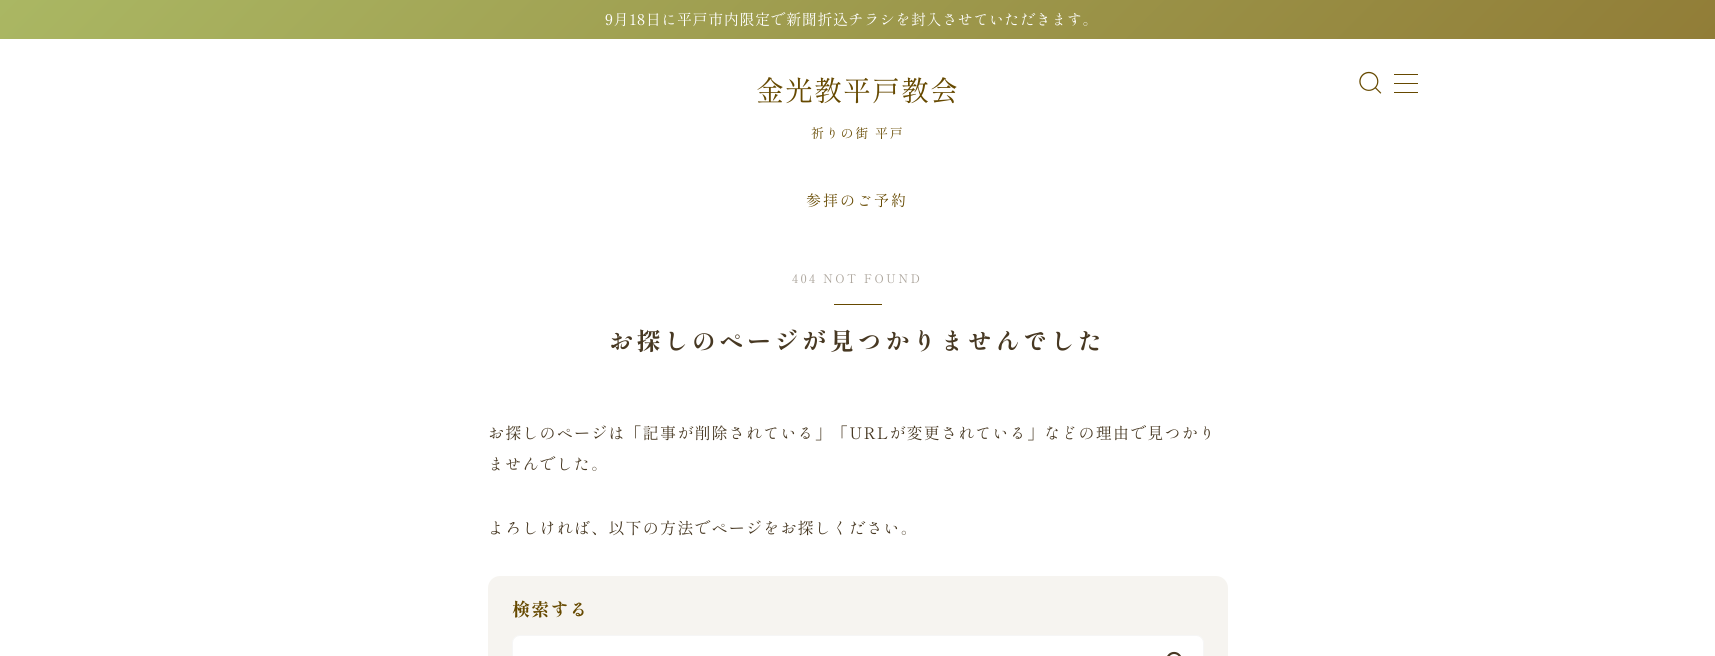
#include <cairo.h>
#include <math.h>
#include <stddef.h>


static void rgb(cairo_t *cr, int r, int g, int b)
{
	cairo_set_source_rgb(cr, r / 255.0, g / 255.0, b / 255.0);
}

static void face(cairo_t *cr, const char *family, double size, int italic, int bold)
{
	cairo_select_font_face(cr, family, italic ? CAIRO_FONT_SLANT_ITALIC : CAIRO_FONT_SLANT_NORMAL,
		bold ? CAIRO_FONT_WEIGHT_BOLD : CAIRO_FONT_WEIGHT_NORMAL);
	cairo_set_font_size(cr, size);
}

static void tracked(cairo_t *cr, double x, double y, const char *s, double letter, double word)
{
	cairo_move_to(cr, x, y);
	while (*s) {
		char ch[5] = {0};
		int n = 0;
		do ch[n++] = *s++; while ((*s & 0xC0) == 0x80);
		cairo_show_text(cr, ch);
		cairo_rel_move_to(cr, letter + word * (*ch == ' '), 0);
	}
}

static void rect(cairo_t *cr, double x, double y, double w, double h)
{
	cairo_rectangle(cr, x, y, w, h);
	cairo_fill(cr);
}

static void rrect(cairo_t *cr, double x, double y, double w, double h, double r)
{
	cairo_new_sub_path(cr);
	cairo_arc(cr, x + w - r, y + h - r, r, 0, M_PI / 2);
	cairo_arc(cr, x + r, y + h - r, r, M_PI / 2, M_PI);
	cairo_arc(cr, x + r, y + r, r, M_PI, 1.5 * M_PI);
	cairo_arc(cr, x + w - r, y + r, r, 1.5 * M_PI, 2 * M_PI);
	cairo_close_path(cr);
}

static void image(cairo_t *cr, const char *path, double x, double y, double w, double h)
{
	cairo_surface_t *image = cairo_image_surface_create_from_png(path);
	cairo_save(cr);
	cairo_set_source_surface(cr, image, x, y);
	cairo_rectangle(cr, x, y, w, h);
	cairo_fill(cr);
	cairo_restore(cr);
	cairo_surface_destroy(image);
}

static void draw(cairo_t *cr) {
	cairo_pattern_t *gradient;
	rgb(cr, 255, 255, 255);
	cairo_paint(cr);
	gradient = cairo_pattern_create_linear(419, -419, 1296, 458);
	cairo_pattern_add_color_stop_rgba(gradient, 0, 0.667, 0.718, 0.388, 1);
	cairo_pattern_add_color_stop_rgba(gradient, 1, 0.569, 0.49, 0.216, 1);
	cairo_set_source(cr, gradient);
	cairo_pattern_destroy(gradient);
	rect(cr, 0, 0, 1715, 39);
	face(cr, "Shippori Mincho", 15, 0, 0);
	rgb(cr, 255, 255, 255);
	tracked(cr, 605, 25, "9月18日に平戸市内限定で新聞折込チラシを封入させていただきます。", 0.6, 0);
	face(cr, "Shippori Mincho", 28, 0, 0);
	rgb(cr, 102, 73, 0);
	tracked(cr, 756, 101, "金光教平戸教会", 1, 0);
	face(cr, "Shippori Mincho", 13, 0, 0);
	tracked(cr, 811, 138, "祈りの街 平戸", 1.75, 0);
	image(cr, "image0.png", 1359, 71, 23, 23);
	rect(cr, 1394, 74, 24, 1);
	rect(cr, 1394, 83, 24, 1);
	rect(cr, 1394, 92, 24, 1);
	face(cr, "Shippori Mincho", 15, 0, 0);
	tracked(cr, 806, 206, "参拝のご予約", 2, 0);
	face(cr, "Shippori Mincho", 12, 0, 0);
	rgb(cr, 172, 165, 156);
	tracked(cr, 792, 283, "404 NOT FOUND", 2.4, 0);
	rgb(cr, 102, 73, 0);
	rect(cr, 834, 304, 48, 1);
	face(cr, "Shippori Mincho", 24, 0, 1);
	rgb(cr, 71, 56, 34);
	tracked(cr, 609, 350, "お探しのページが見つかりませんでした", 3.6, 0);
	face(cr, "Shippori Mincho", 16, 0, 0);
	tracked(cr, 488, 439, "お探しのページは「記事が削除されている」「URLが変更されている」などの理由で見つかり", 1.2, 0);
	tracked(cr, 488, 470, "ませんでした。", 1.2, 0);
	tracked(cr, 488, 534, "よろしければ、以下の方法でページをお探しください。", 1.2, 0);
	rgb(cr, 246, 244, 240);
	rrect(cr, 488, 576, 740, 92, 12);
	cairo_fill(cr);
	face(cr, "Shippori Mincho", 18, 0, 1);
	rgb(cr, 102, 73, 0);
	tracked(cr, 512, 616, "検索する", 1.2, 0);
	rgb(cr, 255, 255, 255);
	rrect(cr, 512.5, 635.5, 691, 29, 7.5);
	cairo_fill_preserve(cr);
	rgb(cr, 246, 246, 246);
	cairo_set_line_width(cr, 1);
	cairo_stroke(cr);
	image(cr, "image1.png", 1167, 651, 14, 5);
}

int main(void) {
	cairo_surface_t *surface = cairo_image_surface_create(CAIRO_FORMAT_RGB24, 1715, 656);
	cairo_t *cr = cairo_create(surface);
	cairo_font_options_t *options = cairo_font_options_create();
	cairo_font_options_set_hint_metrics(options, CAIRO_HINT_METRICS_OFF);
	cairo_font_options_set_hint_style(options, CAIRO_HINT_STYLE_NONE);
	cairo_set_font_options(cr, options);
	cairo_set_miter_limit(cr, 4);
	draw(cr);
	cairo_surface_write_to_png(surface, "render.png");
	cairo_font_options_destroy(options);
	cairo_destroy(cr);
	cairo_surface_destroy(surface);
	return 0;
}
